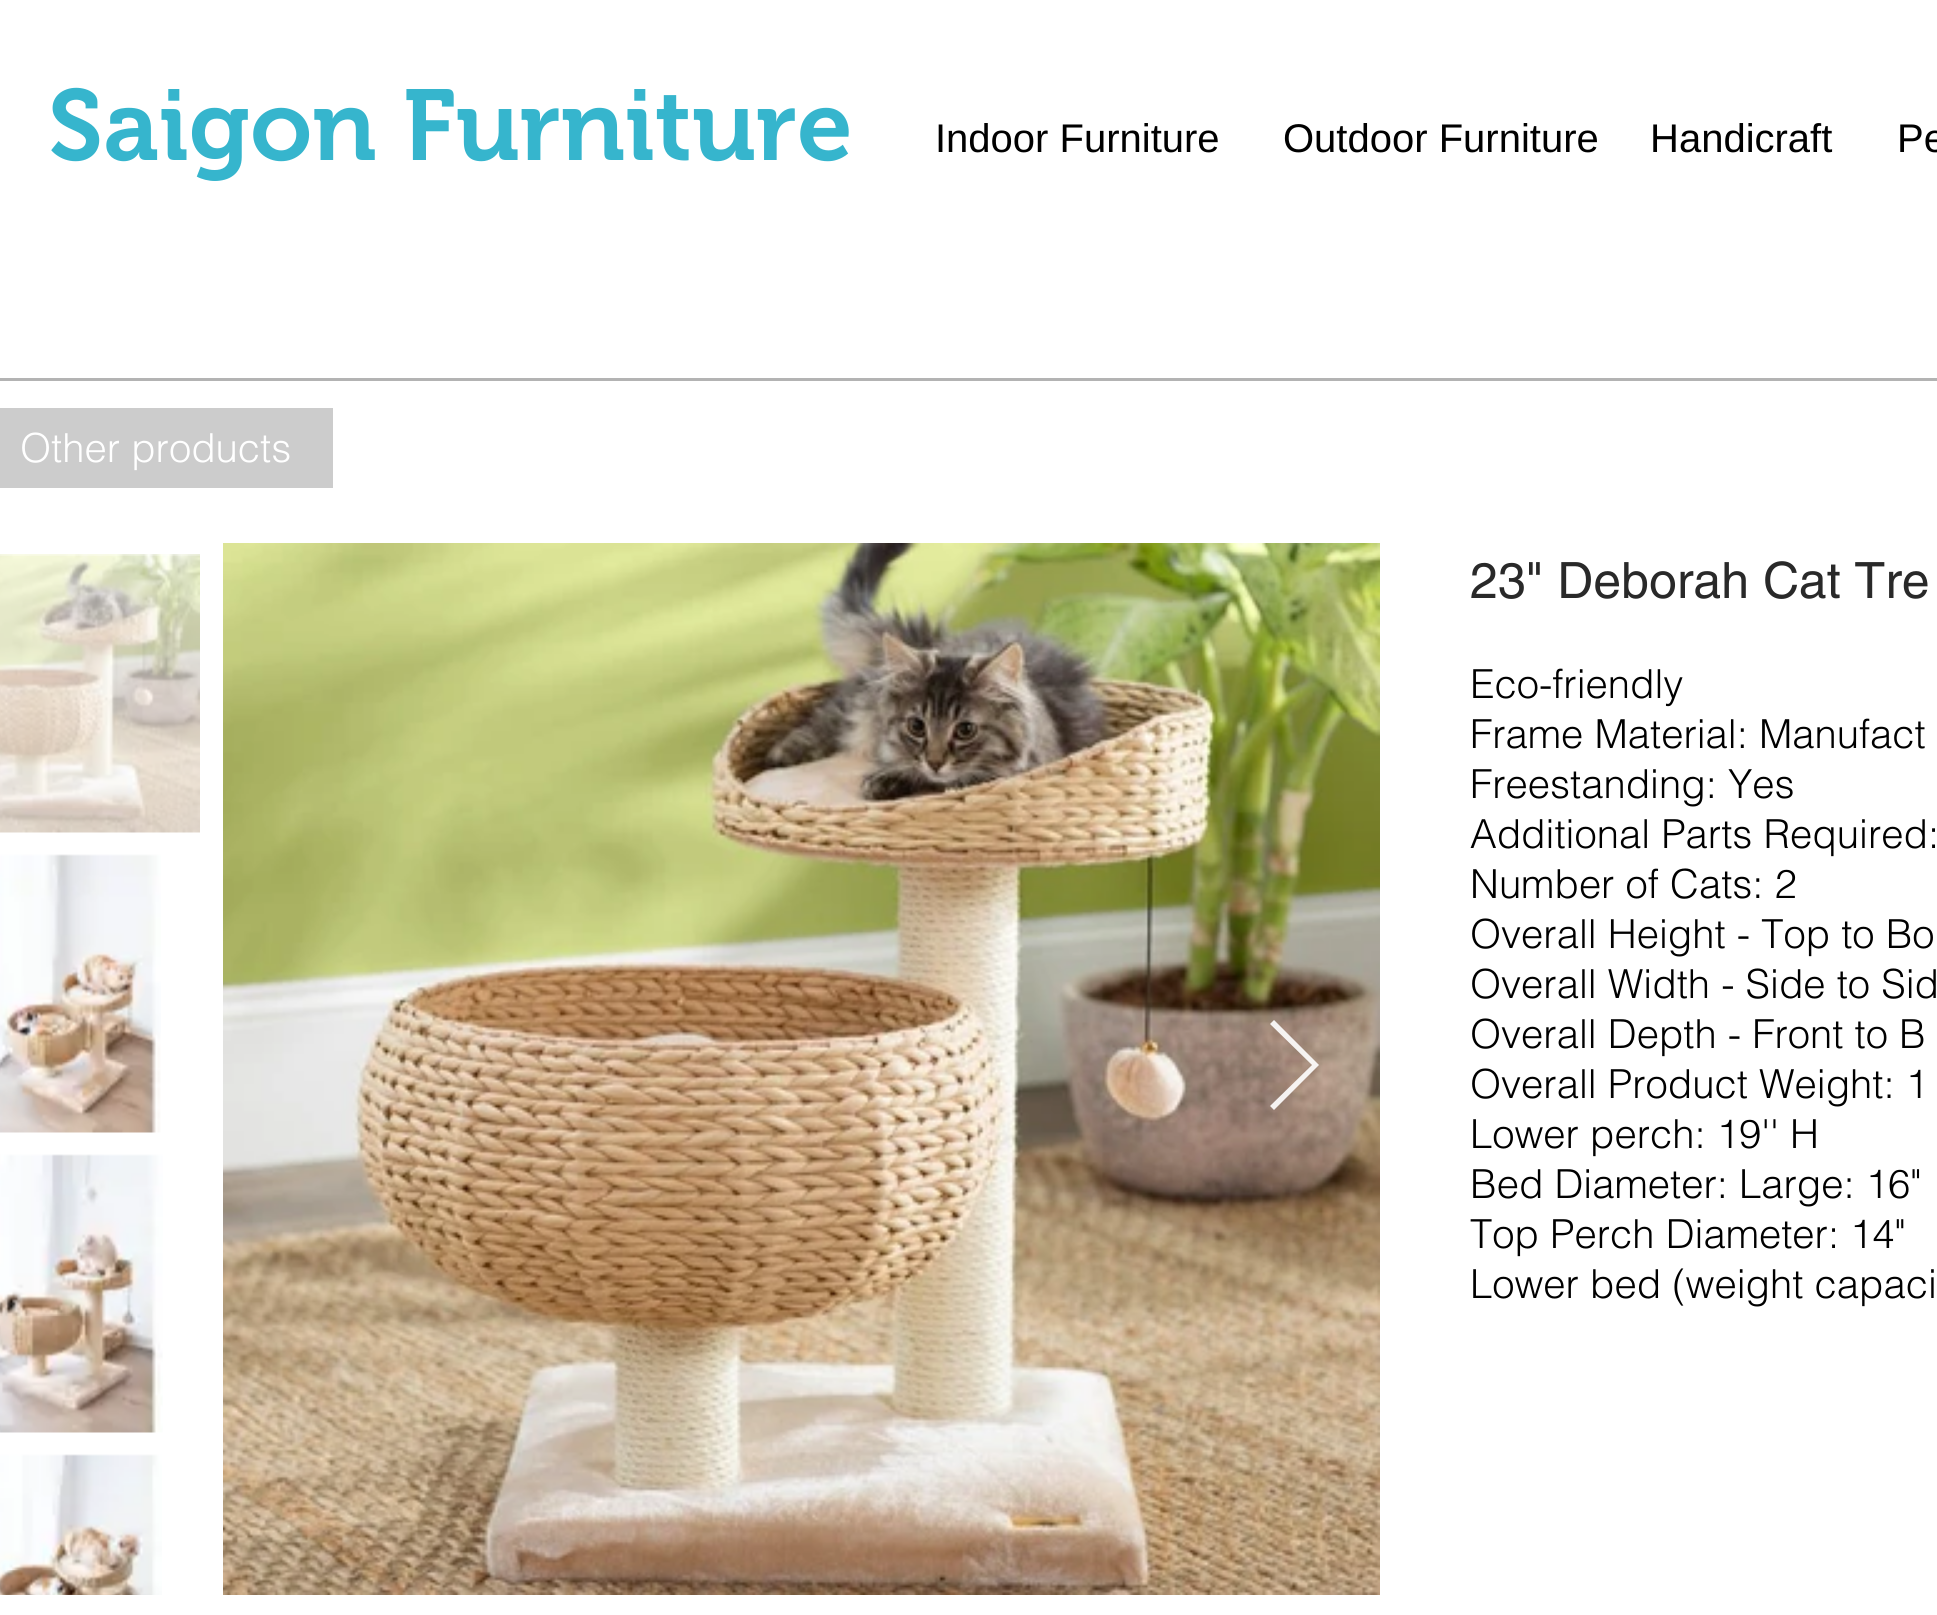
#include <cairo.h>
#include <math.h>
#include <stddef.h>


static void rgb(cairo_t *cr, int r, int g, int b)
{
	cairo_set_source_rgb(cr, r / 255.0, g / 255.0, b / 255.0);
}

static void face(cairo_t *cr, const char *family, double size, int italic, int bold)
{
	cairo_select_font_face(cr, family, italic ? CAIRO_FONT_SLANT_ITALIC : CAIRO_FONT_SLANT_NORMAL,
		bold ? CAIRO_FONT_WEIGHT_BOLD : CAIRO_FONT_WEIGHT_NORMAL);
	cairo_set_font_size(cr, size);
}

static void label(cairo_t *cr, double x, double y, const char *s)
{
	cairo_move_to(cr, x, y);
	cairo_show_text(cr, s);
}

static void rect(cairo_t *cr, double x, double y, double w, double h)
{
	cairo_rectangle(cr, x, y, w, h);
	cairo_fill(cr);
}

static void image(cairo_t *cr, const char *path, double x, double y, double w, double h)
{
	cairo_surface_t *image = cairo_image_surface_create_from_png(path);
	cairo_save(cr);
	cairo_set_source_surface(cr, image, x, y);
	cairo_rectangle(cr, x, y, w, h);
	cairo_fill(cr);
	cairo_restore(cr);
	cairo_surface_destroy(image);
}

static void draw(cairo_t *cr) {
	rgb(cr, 255, 255, 255);
	cairo_paint(cr);
	face(cr, "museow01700 SemiBold", 100, 0, 0);
	rgb(cr, 54, 181, 205);
	label(cr, 48, 160, "Saigon Furniture");
	face(cr, "Liberation Sans", 40, 0, 0);
	rgb(cr, 0, 0, 0);
	label(cr, 935, 152, "Indoor Furniture");
	label(cr, 1283, 152, "Outdoor Furniture");
	label(cr, 1650, 152, "Handicraft");
	label(cr, 1897, 152, "Pe");
	rgb(cr, 179, 179, 179);
	rect(cr, 0, 378, 1937, 3);
	rgb(cr, 204, 204, 204);
	rect(cr, 0, 408, 333, 80);
	face(cr, "helvetica Light", 40, 0, 0);
	rgb(cr, 255, 255, 255);
	label(cr, 20, 462, "Other products");
	image(cr, "image0.png", 0, 554, 200, 279);
	image(cr, "image1.png", 0, 854, 161, 279);
	image(cr, "image2.png", 0, 1154, 163, 279);
	image(cr, "image3.png", 0, 1454, 162, 141);
	image(cr, "image4.png", 223, 543, 1157, 1052);
	cairo_set_source_rgba(cr, 1, 1, 1, 0.9);
	cairo_new_path(cr);
	cairo_move_to(cr, 1270, 1024);
	cairo_line_to(cr, 1274, 1020);
	cairo_line_to(cr, 1319, 1065);
	cairo_line_to(cr, 1274, 1110);
	cairo_line_to(cr, 1270, 1106);
	cairo_line_to(cr, 1312, 1065);
	cairo_close_path(cr);
	cairo_fill(cr);
	face(cr, "helvetica", 50, 0, 0);
	rgb(cr, 41, 41, 41);
	label(cr, 1470, 598, "23\" Deborah Cat Tre");
	face(cr, "helvetica Light", 40, 0, 0);
	rgb(cr, 0, 0, 0);
	label(cr, 1470, 698, "Eco-friendly");
	label(cr, 1470, 748, "Frame Material: Manufact");
	label(cr, 1470, 798, "Freestanding: Yes");
	label(cr, 1470, 848, "Additional Parts Required:");
	label(cr, 1470, 898, "Number of Cats: 2");
	label(cr, 1470, 948, "Overall Height - Top to Bo");
	label(cr, 1470, 998, "Overall Width - Side to Sid");
	label(cr, 1470, 1048, "Overall Depth - Front to B");
	label(cr, 1470, 1098, "Overall Product Weight: 1");
	label(cr, 1470, 1148, "Lower perch: 19'' H");
	label(cr, 1470, 1198, "Bed Diameter: Large: 16\"");
	label(cr, 1470, 1248, "Top Perch Diameter: 14\"");
	label(cr, 1470, 1298, "Lower bed (weight capaci");
}

int main(void) {
	cairo_surface_t *surface = cairo_image_surface_create(CAIRO_FORMAT_RGB24, 1937, 1615);
	cairo_t *cr = cairo_create(surface);
	cairo_font_options_t *options = cairo_font_options_create();
	cairo_font_options_set_hint_metrics(options, CAIRO_HINT_METRICS_OFF);
	cairo_font_options_set_hint_style(options, CAIRO_HINT_STYLE_NONE);
	cairo_set_font_options(cr, options);
	cairo_set_miter_limit(cr, 4);
	draw(cr);
	cairo_surface_write_to_png(surface, "render.png");
	cairo_font_options_destroy(options);
	cairo_destroy(cr);
	cairo_surface_destroy(surface);
	return 0;
}
